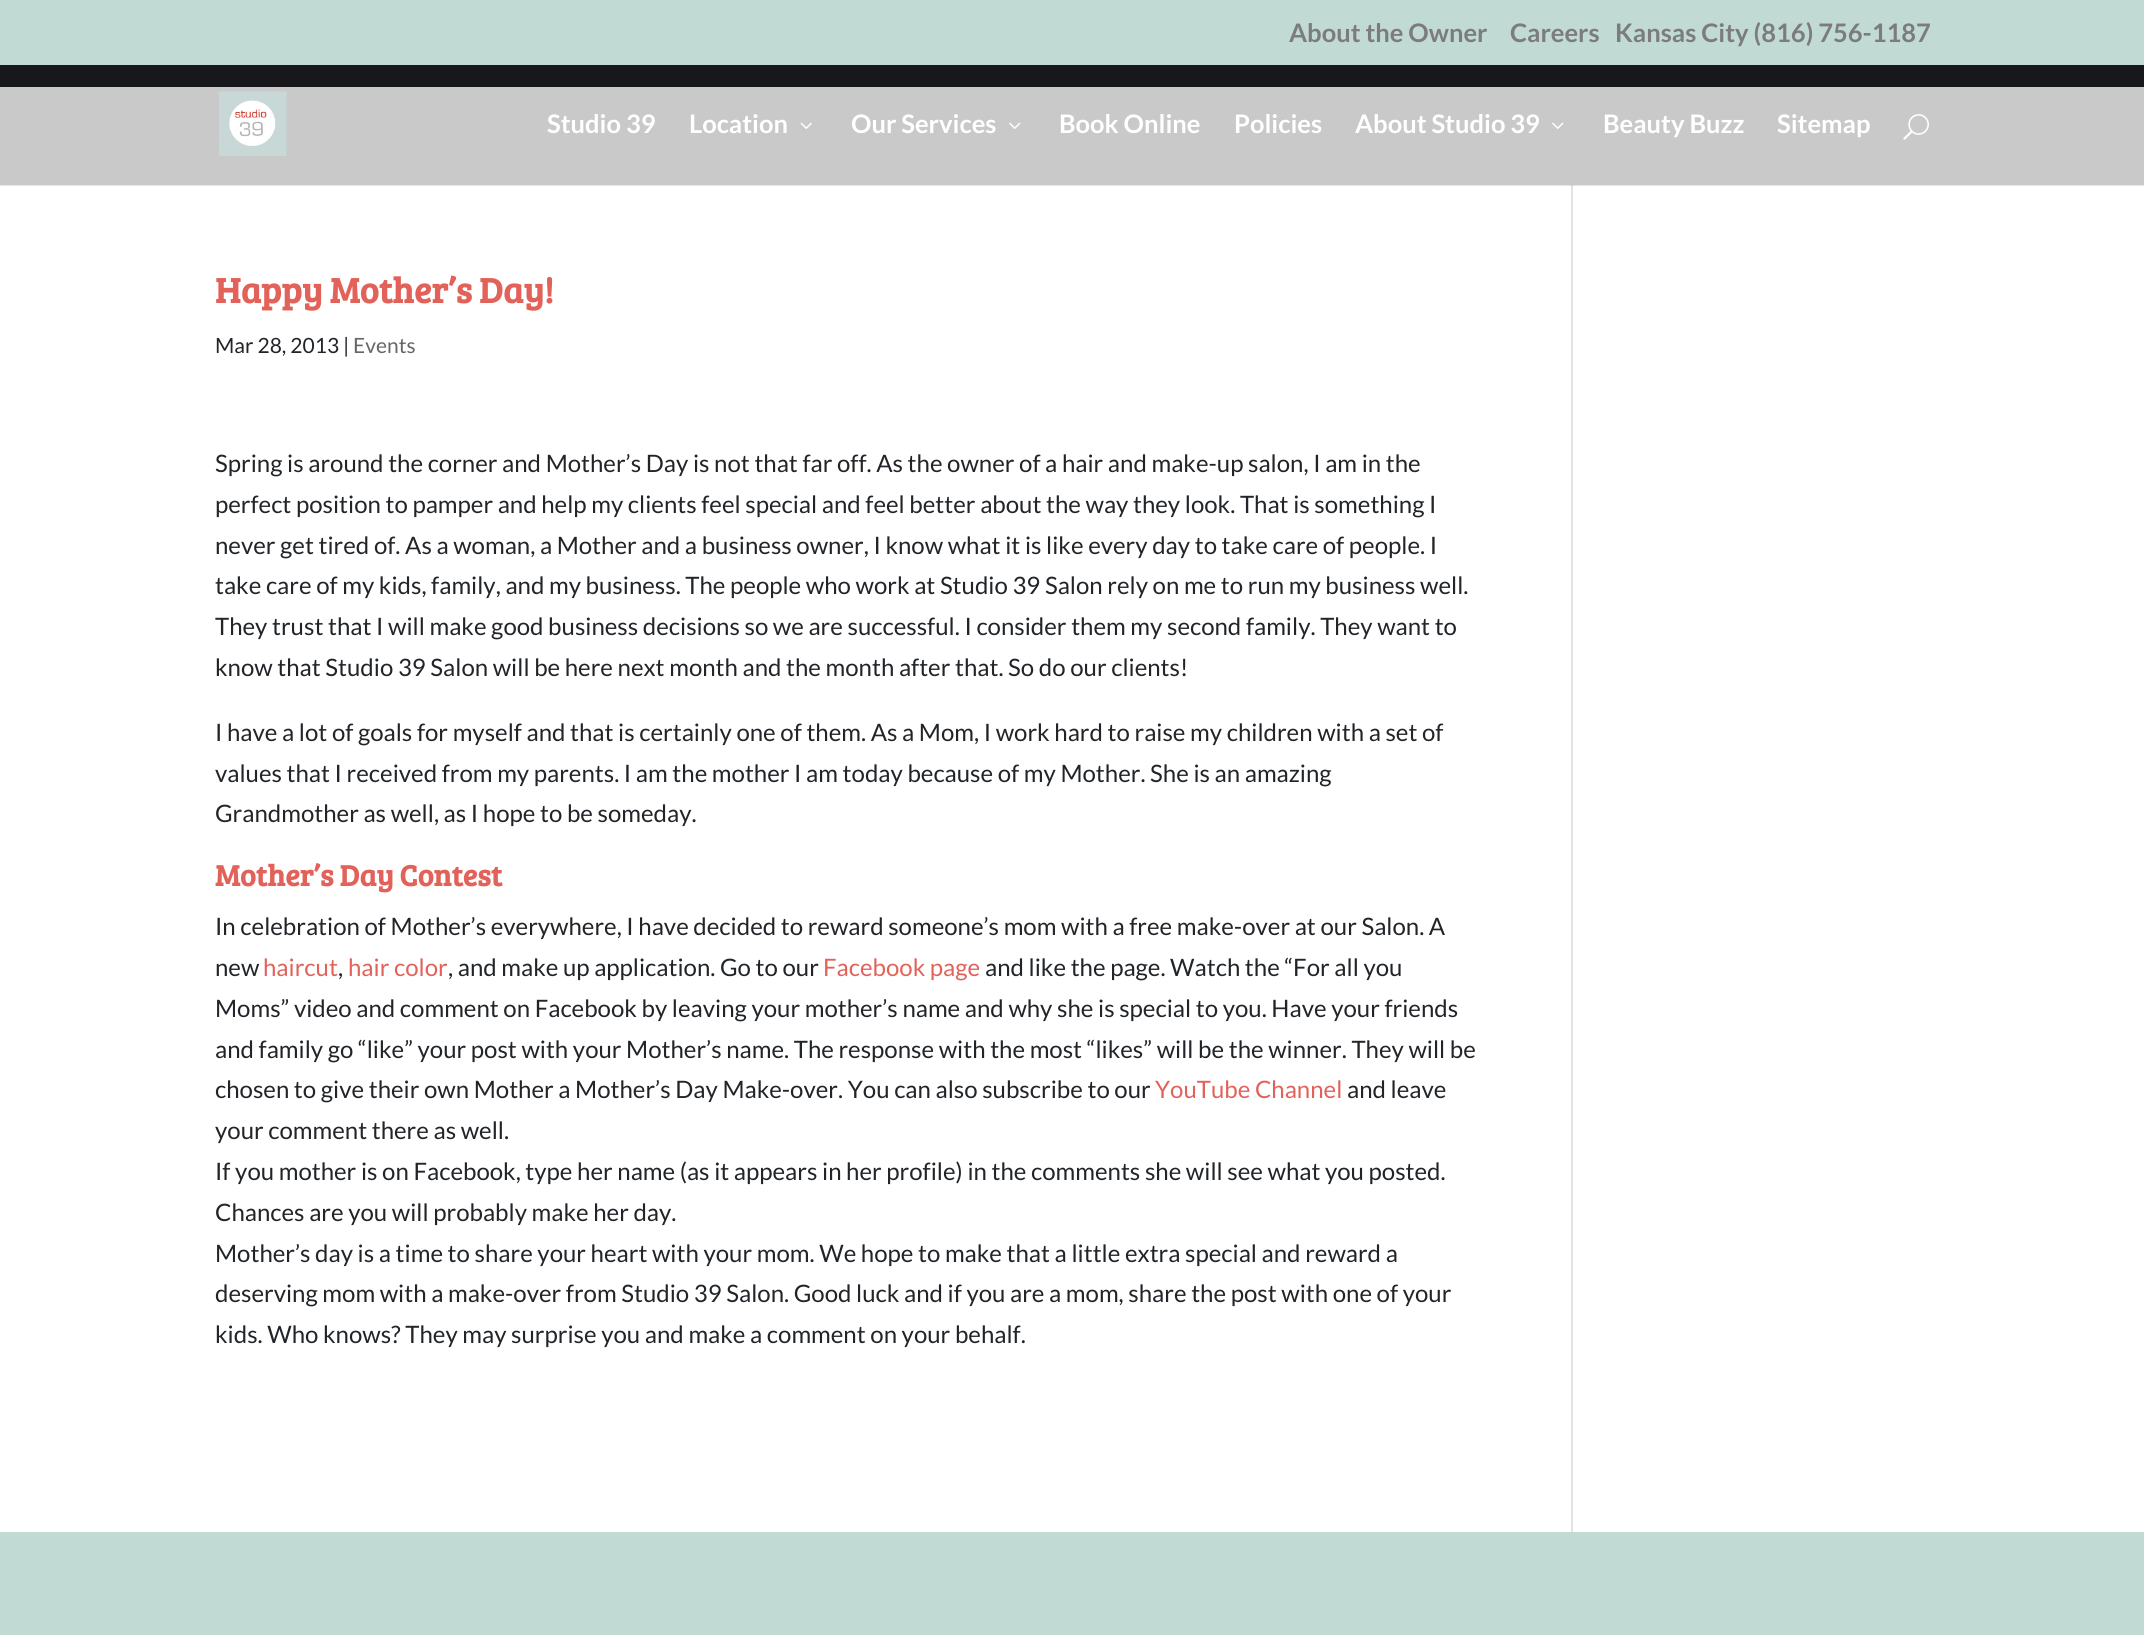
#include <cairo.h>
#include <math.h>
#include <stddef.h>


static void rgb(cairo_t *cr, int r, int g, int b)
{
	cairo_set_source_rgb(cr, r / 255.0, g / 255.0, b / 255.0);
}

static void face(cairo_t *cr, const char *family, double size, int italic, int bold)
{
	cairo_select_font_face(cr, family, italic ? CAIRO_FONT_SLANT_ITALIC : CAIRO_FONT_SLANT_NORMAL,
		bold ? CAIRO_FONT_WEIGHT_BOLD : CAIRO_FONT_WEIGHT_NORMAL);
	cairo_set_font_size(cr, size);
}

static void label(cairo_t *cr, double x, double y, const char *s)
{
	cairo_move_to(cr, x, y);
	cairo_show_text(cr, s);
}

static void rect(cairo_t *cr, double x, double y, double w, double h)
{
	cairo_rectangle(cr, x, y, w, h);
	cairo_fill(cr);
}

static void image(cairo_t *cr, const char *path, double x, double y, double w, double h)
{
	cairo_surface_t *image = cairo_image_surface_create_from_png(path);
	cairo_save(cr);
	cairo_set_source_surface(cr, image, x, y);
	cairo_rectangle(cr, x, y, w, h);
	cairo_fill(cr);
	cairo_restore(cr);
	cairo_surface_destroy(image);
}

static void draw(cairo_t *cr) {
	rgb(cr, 255, 255, 255);
	cairo_paint(cr);
	rgb(cr, 193, 218, 212);
	rect(cr, 0, 0, 2144, 65);
	face(cr, "Lato", 25.5, 0, 1);
	rgb(cr, 124, 124, 124);
	label(cr, 1289, 42, "About the Owner");
	label(cr, 1510, 42, "Careers");
	label(cr, 1615, 42, "Kansas City (816) 756-1187");
	rgb(cr, 230, 230, 230);
	rect(cr, 0, 185, 2144, 1);
	rgb(cr, 226, 226, 226);
	rect(cr, 1571, 183, 2, 1349);
	rgb(cr, 201, 201, 201);
	rect(cr, 0, 87, 2144, 98);
	rgb(cr, 23, 24, 27);
	rect(cr, 0, 65, 2144, 22);
	image(cr, "image0.png", 219, 91, 68, 65);
	rgb(cr, 255, 255, 255);
	label(cr, 547, 133, "Studio 39");
	label(cr, 689, 133, "Location");
	image(cr, "image1.png", 800, 122, 12, 7);
	label(cr, 851, 133, "Our Services");
	image(cr, "image2.png", 1009, 122, 12, 7);
	label(cr, 1059, 133, "Book Online");
	label(cr, 1234, 133, "Policies");
	label(cr, 1355, 133, "About Studio 39");
	image(cr, "image2.png", 1552, 122, 12, 7);
	label(cr, 1603, 133, "Beauty Buzz");
	label(cr, 1777, 133, "Sitemap");
	image(cr, "image3.png", 1903, 114, 26, 26);
	face(cr, "Bree Serif", 36, 0, 1);
	rgb(cr, 226, 98, 90);
	label(cr, 215, 303, "Happy Mother’s Day!");
	face(cr, "Lato", 21, 0, 0);
	rgb(cr, 33, 36, 40);
	label(cr, 215, 353, "Mar 28, 2013 |");
	rgb(cr, 102, 102, 102);
	label(cr, 353, 353, "Events");
	face(cr, "Lato", 24, 0, 0);
	rgb(cr, 33, 36, 40);
	label(cr, 215, 472, "Spring is around the corner and Mother’s Day is not that far off. As the owner of a hair and make-up salon, I am in the");
	label(cr, 215, 513, "perfect position to pamper and help my clients feel special and feel better about the way they look. That is something I");
	label(cr, 215, 554, "never get tired of. As a woman, a Mother and a business owner, I know what it is like every day to take care of people. I");
	label(cr, 215, 594, "take care of my kids, family, and my business. The people who work at Studio 39 Salon rely on me to run my business well.");
	label(cr, 215, 635, "They trust that I will make good business decisions so we are successful. I consider them my second family. They want to");
	label(cr, 215, 676, "know that Studio 39 Salon will be here next month and the month after that. So do our clients!");
	label(cr, 215, 741, "I have a lot of goals for myself and that is certainly one of them. As a Mom, I work hard to raise my children with a set of");
	label(cr, 215, 782, "values that I received from my parents. I am the mother I am today because of my Mother. She is an amazing");
	label(cr, 215, 822, "Grandmother as well, as I hope to be someday.");
	face(cr, "Bree Serif", 30, 0, 1);
	rgb(cr, 226, 98, 90);
	label(cr, 215, 886, "Mother’s Day Contest");
	face(cr, "Lato", 24, 0, 0);
	rgb(cr, 33, 36, 40);
	label(cr, 215, 935, "In celebration of Mother’s everywhere, I have decided to reward someone’s mom with a free make-over at our Salon. A");
	label(cr, 215, 976, "new");
	rgb(cr, 226, 98, 90);
	label(cr, 263, 976, "haircut");
	rgb(cr, 33, 36, 40);
	label(cr, 338, 976, ",");
	rgb(cr, 226, 98, 90);
	label(cr, 348, 976, "hair color");
	rgb(cr, 33, 36, 40);
	label(cr, 448, 976, ", and make up application. Go to our");
	rgb(cr, 226, 98, 90);
	label(cr, 823, 976, "Facebook page");
	rgb(cr, 33, 36, 40);
	label(cr, 985, 976, "and like the page. Watch the “For all you");
	label(cr, 215, 1017, "Moms” video and comment on Facebook by leaving your mother’s name and why she is special to you. Have your friends");
	label(cr, 215, 1058, "and family go “like” your post with your Mother’s name. The response with the most “likes” will be the winner. They will be");
	label(cr, 215, 1098, "chosen to give their own Mother a Mother’s Day Make-over. You can also subscribe to our");
	rgb(cr, 226, 98, 90);
	label(cr, 1155, 1098, "YouTube Channel");
	rgb(cr, 33, 36, 40);
	label(cr, 1347, 1098, "and leave");
	label(cr, 215, 1139, "your comment there as well.");
	label(cr, 215, 1180, "If you mother is on Facebook, type her name (as it appears in her profile) in the comments she will see what you posted.");
	label(cr, 215, 1221, "Chances are you will probably make her day.");
	label(cr, 215, 1262, "Mother’s day is a time to share your heart with your mom. We hope to make that a little extra special and reward a");
	label(cr, 215, 1302, "deserving mom with a make-over from Studio 39 Salon. Good luck and if you are a mom, share the post with one of your");
	label(cr, 215, 1343, "kids. Who knows? They may surprise you and make a comment on your behalf.");
	rgb(cr, 203, 203, 203);
	rect(cr, 1571, 185, 2, 1);
	rgb(cr, 193, 218, 212);
	rect(cr, 0, 1532, 2144, 103);
}

int main(void) {
	cairo_surface_t *surface = cairo_image_surface_create(CAIRO_FORMAT_RGB24, 2144, 1635);
	cairo_t *cr = cairo_create(surface);
	cairo_font_options_t *options = cairo_font_options_create();
	cairo_font_options_set_hint_metrics(options, CAIRO_HINT_METRICS_OFF);
	cairo_font_options_set_hint_style(options, CAIRO_HINT_STYLE_NONE);
	cairo_set_font_options(cr, options);
	cairo_set_miter_limit(cr, 4);
	draw(cr);
	cairo_surface_write_to_png(surface, "render.png");
	cairo_font_options_destroy(options);
	cairo_destroy(cr);
	cairo_surface_destroy(surface);
	return 0;
}
